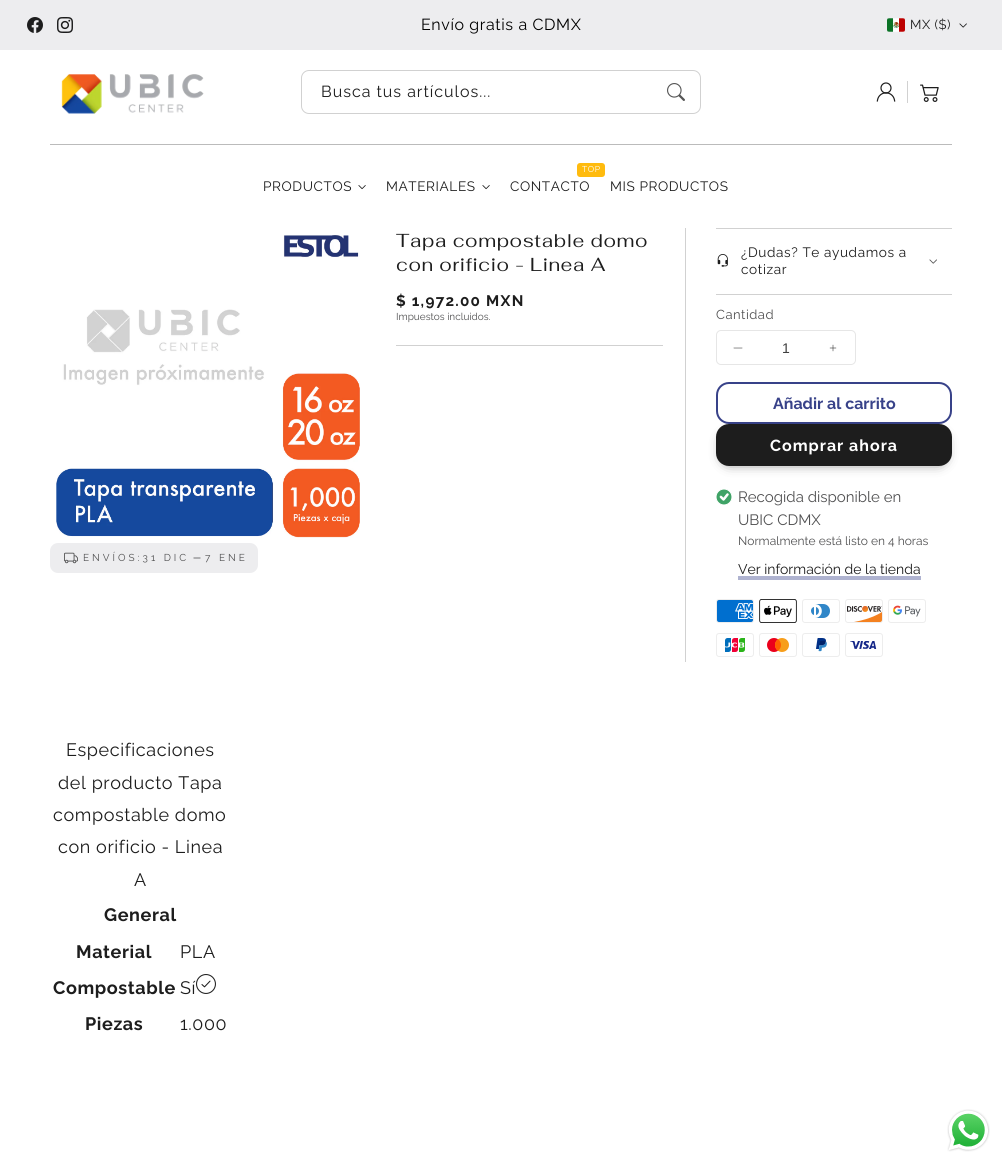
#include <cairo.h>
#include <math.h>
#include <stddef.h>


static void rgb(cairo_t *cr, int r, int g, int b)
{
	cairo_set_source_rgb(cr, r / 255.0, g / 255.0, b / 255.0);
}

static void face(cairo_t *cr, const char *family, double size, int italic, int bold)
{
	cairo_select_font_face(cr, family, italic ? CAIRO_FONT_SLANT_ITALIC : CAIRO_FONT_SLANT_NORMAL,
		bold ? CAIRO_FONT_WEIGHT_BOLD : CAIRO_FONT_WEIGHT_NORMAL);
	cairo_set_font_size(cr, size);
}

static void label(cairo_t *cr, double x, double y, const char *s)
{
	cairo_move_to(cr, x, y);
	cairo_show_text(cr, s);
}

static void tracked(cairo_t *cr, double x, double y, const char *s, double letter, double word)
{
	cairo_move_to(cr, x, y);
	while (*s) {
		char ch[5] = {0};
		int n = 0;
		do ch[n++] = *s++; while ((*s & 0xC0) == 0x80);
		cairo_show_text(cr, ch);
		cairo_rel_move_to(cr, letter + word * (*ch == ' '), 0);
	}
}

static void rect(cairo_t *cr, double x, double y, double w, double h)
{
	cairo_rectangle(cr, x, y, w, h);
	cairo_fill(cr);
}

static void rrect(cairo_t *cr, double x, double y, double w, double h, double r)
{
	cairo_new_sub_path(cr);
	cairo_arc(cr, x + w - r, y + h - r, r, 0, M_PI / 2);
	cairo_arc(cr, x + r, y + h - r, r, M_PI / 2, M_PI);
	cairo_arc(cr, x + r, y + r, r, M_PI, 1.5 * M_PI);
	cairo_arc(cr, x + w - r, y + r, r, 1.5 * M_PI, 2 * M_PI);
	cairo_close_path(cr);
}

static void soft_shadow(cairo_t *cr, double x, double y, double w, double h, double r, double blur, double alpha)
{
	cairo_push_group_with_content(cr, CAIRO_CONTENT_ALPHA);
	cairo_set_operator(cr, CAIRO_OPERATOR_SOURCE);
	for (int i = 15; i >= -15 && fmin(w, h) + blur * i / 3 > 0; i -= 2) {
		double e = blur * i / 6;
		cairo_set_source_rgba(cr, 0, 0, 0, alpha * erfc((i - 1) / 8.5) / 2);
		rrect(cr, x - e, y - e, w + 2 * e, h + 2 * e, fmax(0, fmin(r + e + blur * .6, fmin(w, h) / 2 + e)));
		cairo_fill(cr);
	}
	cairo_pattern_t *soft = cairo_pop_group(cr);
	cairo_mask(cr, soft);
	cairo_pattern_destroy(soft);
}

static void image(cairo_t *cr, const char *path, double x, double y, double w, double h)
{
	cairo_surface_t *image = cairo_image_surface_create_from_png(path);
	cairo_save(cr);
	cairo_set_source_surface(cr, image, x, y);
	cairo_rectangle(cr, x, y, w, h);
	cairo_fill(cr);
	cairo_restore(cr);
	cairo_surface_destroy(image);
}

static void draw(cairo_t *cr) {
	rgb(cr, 255, 255, 255);
	cairo_paint(cr);
	rgb(cr, 237, 237, 239);
	rect(cr, 0, 0, 1002, 50);
	image(cr, "image0.png", 27, 17, 16, 16);
	image(cr, "image1.png", 57, 17, 16, 16);
	face(cr, "Raleway", 16, 0, 0);
	rgb(cr, 0, 0, 0);
	tracked(cr, 421, 30, "Envío gratis a CDMX", 0.6, 0);
	image(cr, "image2.png", 887, 18, 18, 14);
	face(cr, "Raleway", 13, 0, 0);
	rgb(cr, 29, 29, 29);
	tracked(cr, 910, 29, "MX ($)", 0.5, 0);
	image(cr, "image3.png", 959, 23, 8, 5);
	image(cr, "image4.png", 61, 74, 143, 40);
	rrect(cr, 301.5, 70.5, 399, 43, 7.5);
	rgb(cr, 209, 209, 209);
	cairo_set_line_width(cr, 1);
	cairo_stroke(cr);
	face(cr, "Raleway", 16, 0, 0);
	rgb(cr, 29, 29, 29);
	tracked(cr, 321, 97, "Busca tus artículos...", 1, 0);
	image(cr, "image5.png", 667, 83, 18, 18);
	image(cr, "image6.png", 876, 82, 20, 20);
	rgb(cr, 209, 209, 209);
	rect(cr, 907, 81, 1, 22);
	image(cr, "image7.png", 920, 84, 19, 18);
	rgb(cr, 187, 187, 187);
	rect(cr, 50, 144, 902, 1);
	face(cr, "Raleway", 13.6, 0, 0);
	rgb(cr, 29, 29, 29);
	tracked(cr, 263, 191, "PRODUCTOS", 0.6, 0);
	image(cr, "image8.png", 358, 185, 8, 5);
	tracked(cr, 386, 191, "MATERIALES", 0.6, 0);
	image(cr, "image8.png", 482, 185, 8, 5);
	rgb(cr, 255, 187, 14);
	rrect(cr, 577, 163, 28, 14, 3);
	cairo_fill(cr);
	face(cr, "Raleway", 8.5, 0, 0);
	rgb(cr, 255, 255, 255);
	tracked(cr, 582, 172, "TOP", 0.6, 0);
	face(cr, "Raleway", 13.6, 0, 0);
	rgb(cr, 29, 29, 29);
	tracked(cr, 510, 191, "CONTACTO", 0.6, 0);
	tracked(cr, 610, 191, "MIS PRODUCTOS", 0.6, 0);
	image(cr, "image9.png", 56, 235, 304, 303);
	rgb(cr, 237, 237, 239);
	rrect(cr, 50, 543, 208, 30, 8);
	cairo_fill(cr);
	image(cr, "image10.png", 64, 552, 14, 12);
	face(cr, "Raleway", 10, 0, 0);
	rgb(cr, 81, 81, 82);
	tracked(cr, 83, 561, "ENVÍOS:31 DIC", 3, 0);
	image(cr, "image11.png", 193, 557, 8, 2);
	tracked(cr, 205, 561, "7 ENE", 3, 0);
	face(cr, "Fahkwang", 18.75, 0, 0);
	rgb(cr, 29, 29, 29);
	tracked(cr, 396, 247, "Tapa compostable domo", 0.6, 0);
	tracked(cr, 396, 271, "con orificio - Linea A", 0.6, 0);
	face(cr, "Raleway", 15.25, 0, 1);
	tracked(cr, 396, 306, "$ 1,972.00 MXN", 1.25, 0);
	face(cr, "Raleway", 10, 0, 0);
	rgb(cr, 81, 81, 82);
	label(cr, 396, 320, "Impuestos incluidos.");
	rgb(cr, 209, 209, 209);
	rect(cr, 396, 345, 267, 1);
	rect(cr, 685, 228, 1, 434);
	rect(cr, 716, 228, 236, 1);
	image(cr, "image12.png", 717, 254, 11, 13);
	face(cr, "Raleway", 13.6, 0, 0);
	rgb(cr, 29, 29, 29);
	tracked(cr, 741, 257, "¿Dudas? Te ayudamos a", 0.6, 0);
	tracked(cr, 741, 274, "cotizar", 0.6, 0);
	image(cr, "image13.png", 929, 259, 8, 5);
	rgb(cr, 209, 209, 209);
	rect(cr, 716, 294, 236, 1);
	face(cr, "Raleway", 13, 0, 0);
	rgb(cr, 81, 81, 82);
	tracked(cr, 716, 319, "Cantidad", 0.5, 0);
	image(cr, "image14.png", 733, 347, 10, 2);
	cairo_new_path(cr);
	cairo_move_to(cr, 833, 345);
	cairo_line_to(cr, 833, 351);
	cairo_move_to(cr, 830, 348);
	cairo_line_to(cr, 836, 348);
	rgb(cr, 29, 29, 29);
	cairo_set_line_width(cr, 0.5);
	cairo_set_line_cap(cr, CAIRO_LINE_CAP_ROUND);
	cairo_stroke(cr);
	rrect(cr, 716.5, 330.5, 139, 34, 4.5);
	rgb(cr, 230, 230, 230);
	cairo_set_line_width(cr, 1);
	cairo_set_line_cap(cr, CAIRO_LINE_CAP_BUTT);
	cairo_stroke(cr);
	face(cr, "Liberation Sans", 14, 0, 0);
	rgb(cr, 63, 63, 63);
	label(cr, 782, 353, "1");
	rrect(cr, 717, 383, 234, 40, 12);
	rgb(cr, 56, 66, 137);
	cairo_set_line_width(cr, 2);
	cairo_stroke(cr);
	face(cr, "Raleway", 16, 0, 1);
	label(cr, 773, 409, "Añadir al carrito");
	rgb(cr, 0, 0, 0);
	soft_shadow(cr, 726, 438, 216, 22, 3, 7, 1);
	rgb(cr, 29, 29, 29);
	rrect(cr, 716, 424, 236, 42, 13);
	cairo_fill(cr);
	rgb(cr, 255, 255, 255);
	tracked(cr, 770, 451, "Comprar ahora", 1, 0);
	image(cr, "image15.png", 716, 489, 16, 16);
	face(cr, "Raleway", 15, 0, 0);
	rgb(cr, 81, 81, 82);
	label(cr, 738, 502, "Recogida disponible en");
	label(cr, 738, 525, "UBIC CDMX");
	face(cr, "Raleway", 12, 0, 0);
	label(cr, 738, 545, "Normalmente está listo en 4 horas");
	face(cr, "Raleway", 14, 0, 0);
	rgb(cr, 29, 29, 29);
	label(cr, 738, 574, "Ver información de la tienda");
	rgb(cr, 175, 179, 208);
	rect(cr, 738, 576, 183, 4);
	image(cr, "image16.png", 716, 599, 38, 24);
	image(cr, "image17.png", 759, 599, 38, 24);
	image(cr, "image18.png", 802, 599, 38, 24);
	image(cr, "image19.png", 845, 599, 38, 24);
	image(cr, "image20.png", 888, 599, 38, 24);
	image(cr, "image21.png", 716, 633, 38, 24);
	image(cr, "image22.png", 759, 633, 38, 24);
	image(cr, "image23.png", 802, 633, 38, 24);
	image(cr, "image24.png", 845, 633, 38, 24);
	face(cr, "Raleway", 18, 0, 0);
	rgb(cr, 29, 29, 29);
	tracked(cr, 66, 756, "Especificaciones", 0.6, 0);
	tracked(cr, 58, 789, "del producto Tapa", 0.6, 0);
	tracked(cr, 53, 821, "compostable domo", 0.6, 0);
	tracked(cr, 58, 853, "con orificio - Linea", 0.6, 0);
	tracked(cr, 134, 886, "A", 0.6, 0);
	face(cr, "Raleway", 18, 0, 1);
	tracked(cr, 104, 921, "General", 0.6, 0);
	tracked(cr, 76, 958, "Material", 0.6, 0);
	face(cr, "Raleway", 18, 0, 0);
	tracked(cr, 180, 958, "PLA", 0.6, 0);
	face(cr, "Raleway", 18, 0, 1);
	tracked(cr, 53, 994, "Compostable", 0.6, 0);
	face(cr, "Raleway", 18, 0, 0);
	tracked(cr, 180, 994, "Sí", 0.6, 0);
	image(cr, "image25.png", 196, 974, 20, 20);
	face(cr, "Raleway", 18, 0, 1);
	tracked(cr, 85, 1030, "Piezas", 0.6, 0);
	face(cr, "Raleway", 18, 0, 0);
	tracked(cr, 180, 1030, "1.000", 0.6, 0);
	image(cr, "image26.png", 947, 1109, 43, 43);
}

int main(void) {
	cairo_surface_t *surface = cairo_image_surface_create(CAIRO_FORMAT_RGB24, 1002, 1164);
	cairo_t *cr = cairo_create(surface);
	cairo_font_options_t *options = cairo_font_options_create();
	cairo_font_options_set_hint_metrics(options, CAIRO_HINT_METRICS_OFF);
	cairo_font_options_set_hint_style(options, CAIRO_HINT_STYLE_NONE);
	cairo_set_font_options(cr, options);
	cairo_set_miter_limit(cr, 4);
	draw(cr);
	cairo_surface_write_to_png(surface, "render.png");
	cairo_font_options_destroy(options);
	cairo_destroy(cr);
	cairo_surface_destroy(surface);
	return 0;
}
